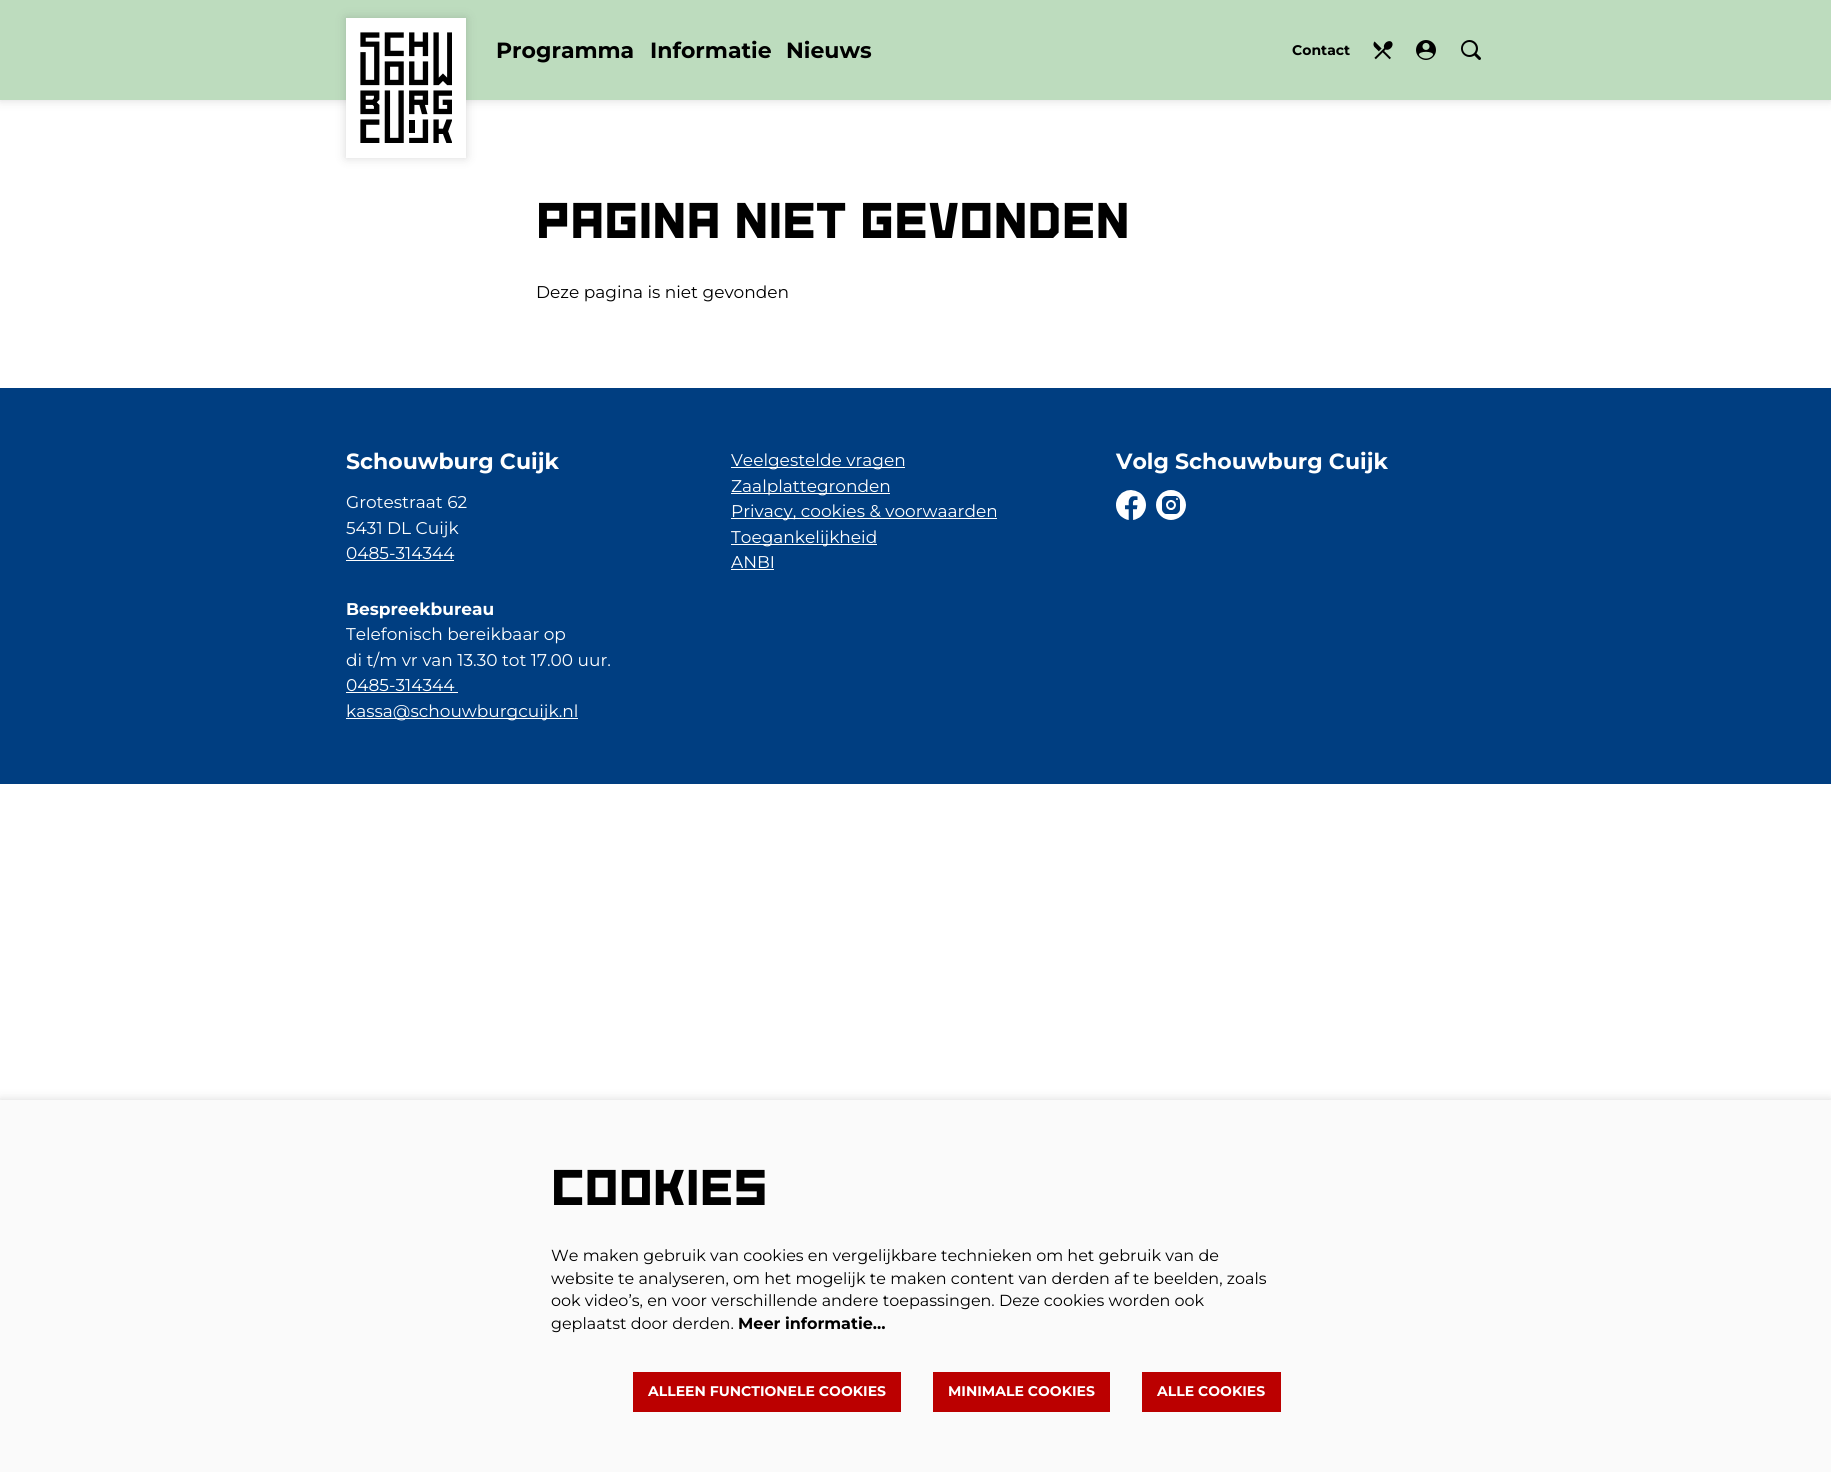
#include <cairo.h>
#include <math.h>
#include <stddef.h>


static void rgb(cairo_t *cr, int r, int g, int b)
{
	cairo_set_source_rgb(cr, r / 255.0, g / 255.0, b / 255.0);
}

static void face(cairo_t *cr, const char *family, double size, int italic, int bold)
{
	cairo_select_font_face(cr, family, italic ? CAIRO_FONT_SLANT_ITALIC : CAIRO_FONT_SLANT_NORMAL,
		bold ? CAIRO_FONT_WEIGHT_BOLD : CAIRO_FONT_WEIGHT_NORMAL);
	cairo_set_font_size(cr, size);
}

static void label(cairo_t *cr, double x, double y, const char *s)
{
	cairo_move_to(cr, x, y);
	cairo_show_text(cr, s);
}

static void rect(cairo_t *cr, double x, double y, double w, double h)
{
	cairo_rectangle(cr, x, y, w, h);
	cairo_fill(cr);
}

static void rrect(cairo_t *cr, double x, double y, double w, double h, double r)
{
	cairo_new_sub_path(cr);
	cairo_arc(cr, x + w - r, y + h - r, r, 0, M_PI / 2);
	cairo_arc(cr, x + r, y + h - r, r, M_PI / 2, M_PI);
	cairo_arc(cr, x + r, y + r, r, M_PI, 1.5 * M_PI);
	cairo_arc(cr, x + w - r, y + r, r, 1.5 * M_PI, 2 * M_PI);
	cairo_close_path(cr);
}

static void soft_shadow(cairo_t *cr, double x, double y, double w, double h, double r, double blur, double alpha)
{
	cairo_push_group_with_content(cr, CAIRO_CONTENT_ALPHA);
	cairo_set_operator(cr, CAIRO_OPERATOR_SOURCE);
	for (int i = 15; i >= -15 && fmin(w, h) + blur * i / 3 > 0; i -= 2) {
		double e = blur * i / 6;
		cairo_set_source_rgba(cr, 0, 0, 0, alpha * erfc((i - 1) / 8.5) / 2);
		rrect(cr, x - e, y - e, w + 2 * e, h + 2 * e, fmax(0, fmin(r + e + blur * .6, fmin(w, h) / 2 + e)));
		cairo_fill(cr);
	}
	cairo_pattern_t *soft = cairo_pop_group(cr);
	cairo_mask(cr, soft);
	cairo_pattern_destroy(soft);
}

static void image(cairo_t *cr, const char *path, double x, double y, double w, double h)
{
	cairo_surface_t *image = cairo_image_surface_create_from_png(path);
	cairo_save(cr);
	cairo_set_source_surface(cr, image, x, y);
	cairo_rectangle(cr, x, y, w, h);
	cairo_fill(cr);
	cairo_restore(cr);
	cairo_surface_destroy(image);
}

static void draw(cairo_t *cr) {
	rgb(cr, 255, 255, 255);
	cairo_paint(cr);
	rgb(cr, 40, 40, 40);
	soft_shadow(cr, 0, 0, 1831, 100, 0, 5, 0.18);
	rgb(cr, 189, 220, 190);
	rect(cr, 0, 0, 1831, 100);
	cairo_save(cr);
	cairo_set_fill_rule(cr, CAIRO_FILL_RULE_EVEN_ODD);
	cairo_new_path(cr);
	cairo_move_to(cr, 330, 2);
	cairo_line_to(cr, 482, 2);
	cairo_line_to(cr, 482, 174);
	cairo_line_to(cr, 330, 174);
	cairo_close_path(cr);
	cairo_move_to(cr, 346, 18);
	cairo_line_to(cr, 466, 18);
	cairo_line_to(cr, 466, 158);
	cairo_line_to(cr, 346, 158);
	cairo_close_path(cr);
	cairo_clip(cr);
	rgb(cr, 40, 40, 40);
	soft_shadow(cr, 346, 18, 120, 140, 0, 5, 0.18);
	cairo_restore(cr);
	image(cr, "image0.png", 346, 18, 120, 125);
	face(cr, "Montserrat", 22, 0, 1);
	rgb(cr, 0, 0, 0);
	label(cr, 496, 58, "Programma");
	label(cr, 650, 58, "Informatie");
	label(cr, 786, 58, "Nieuws");
	face(cr, "Montserrat", 14, 0, 1);
	label(cr, 1292, 55, "Contact");
	image(cr, "image1.png", 1373, 41, 20, 19);
	image(cr, "image2.png", 1416, 40, 20, 20);
	image(cr, "image3.png", 1461, 40, 20, 20);
	face(cr, "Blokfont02", 55, 0, 0);
	label(cr, 536, 238, "PAGINA NIET GEVONDEN");
	face(cr, "Montserrat", 17, 0, 0);
	label(cr, 536, 298, "Deze pagina is niet gevonden");
	rgb(cr, 0, 62, 129);
	rect(cr, 0, 388, 1831, 396);
	face(cr, "Montserrat", 22, 0, 1);
	rgb(cr, 255, 255, 255);
	label(cr, 346, 469, "Schouwburg Cuijk");
	face(cr, "Montserrat", 17, 0, 0);
	label(cr, 346, 508, "Grotestraat 62");
	label(cr, 346, 534, "5431 DL Cuijk");
	label(cr, 346, 559, "0485-314344");
	rect(cr, 346, 560, 108, 1);
	face(cr, "Montserrat", 17, 0, 1);
	label(cr, 346, 615, "Bespreekbureau");
	face(cr, "Montserrat", 17, 0, 0);
	label(cr, 346, 640, "Telefonisch bereikbaar op");
	label(cr, 346, 666, "di t/m vr van 13.30 tot 17.00 uur.");
	label(cr, 346, 691, "0485-314344");
	rect(cr, 346, 692, 112, 1);
	rect(cr, 346, 718, 232, 1);
	label(cr, 346, 717, "kassa@schouwburgcuijk.nl");
	rect(cr, 731, 467, 174, 1);
	label(cr, 731, 466, "Veelgestelde vragen");
	rect(cr, 731, 493, 159, 1);
	label(cr, 731, 492, "Zaalplattegronden");
	rect(cr, 731, 518, 266, 1);
	label(cr, 731, 517, "Privacy, cookies & voorwaarden");
	rect(cr, 731, 544, 146, 1);
	label(cr, 731, 543, "Toegankelijkheid");
	label(cr, 731, 568, "ANBI");
	rect(cr, 731, 569, 43, 1);
	face(cr, "Montserrat", 22, 0, 1);
	label(cr, 1116, 469, "Volg Schouwburg Cuijk");
	image(cr, "image4.png", 1116, 490, 30, 30);
	image(cr, "image5.png", 1156, 490, 30, 30);
	rgb(cr, 40, 40, 40);
	soft_shadow(cr, 0, 1100, 1831, 372, 0, 5, 0.18);
	rgb(cr, 250, 250, 250);
	rect(cr, 0, 1100, 1831, 372);
	face(cr, "Blokfont02", 55, 0, 0);
	rgb(cr, 0, 0, 0);
	label(cr, 551, 1205, "COOKIES");
	face(cr, "Montserrat", 16, 0, 0);
	label(cr, 551, 1261, "We maken gebruik van cookies en vergelijkbare technieken om het gebruik van de");
	label(cr, 551, 1284, "website te analyseren, om het mogelijk te maken content van derden af te beelden, zoals");
	label(cr, 551, 1306, "ook video’s, en voor verschillende andere toepassingen. Deze cookies worden ook");
	label(cr, 551, 1329, "geplaatst door derden.");
	face(cr, "Montserrat", 16, 0, 1);
	label(cr, 738, 1329, "Meer informatie…");
	rgb(cr, 187, 0, 0);
	rect(cr, 633, 1372, 268, 40);
	face(cr, "Montserrat", 14, 0, 1);
	rgb(cr, 255, 255, 255);
	label(cr, 648, 1396, "ALLEEN FUNCTIONELE COOKIES");
	rgb(cr, 187, 0, 0);
	rect(cr, 933, 1372, 177, 40);
	rgb(cr, 255, 255, 255);
	label(cr, 948, 1396, "MINIMALE COOKIES");
	rgb(cr, 187, 0, 0);
	rect(cr, 1142, 1372, 139, 40);
	rgb(cr, 255, 255, 255);
	label(cr, 1157, 1396, "ALLE COOKIES");
}

int main(void) {
	cairo_surface_t *surface = cairo_image_surface_create(CAIRO_FORMAT_RGB24, 1831, 1472);
	cairo_t *cr = cairo_create(surface);
	cairo_font_options_t *options = cairo_font_options_create();
	cairo_font_options_set_hint_metrics(options, CAIRO_HINT_METRICS_OFF);
	cairo_font_options_set_hint_style(options, CAIRO_HINT_STYLE_NONE);
	cairo_set_font_options(cr, options);
	cairo_set_miter_limit(cr, 4);
	draw(cr);
	cairo_surface_write_to_png(surface, "render.png");
	cairo_font_options_destroy(options);
	cairo_destroy(cr);
	cairo_surface_destroy(surface);
	return 0;
}
